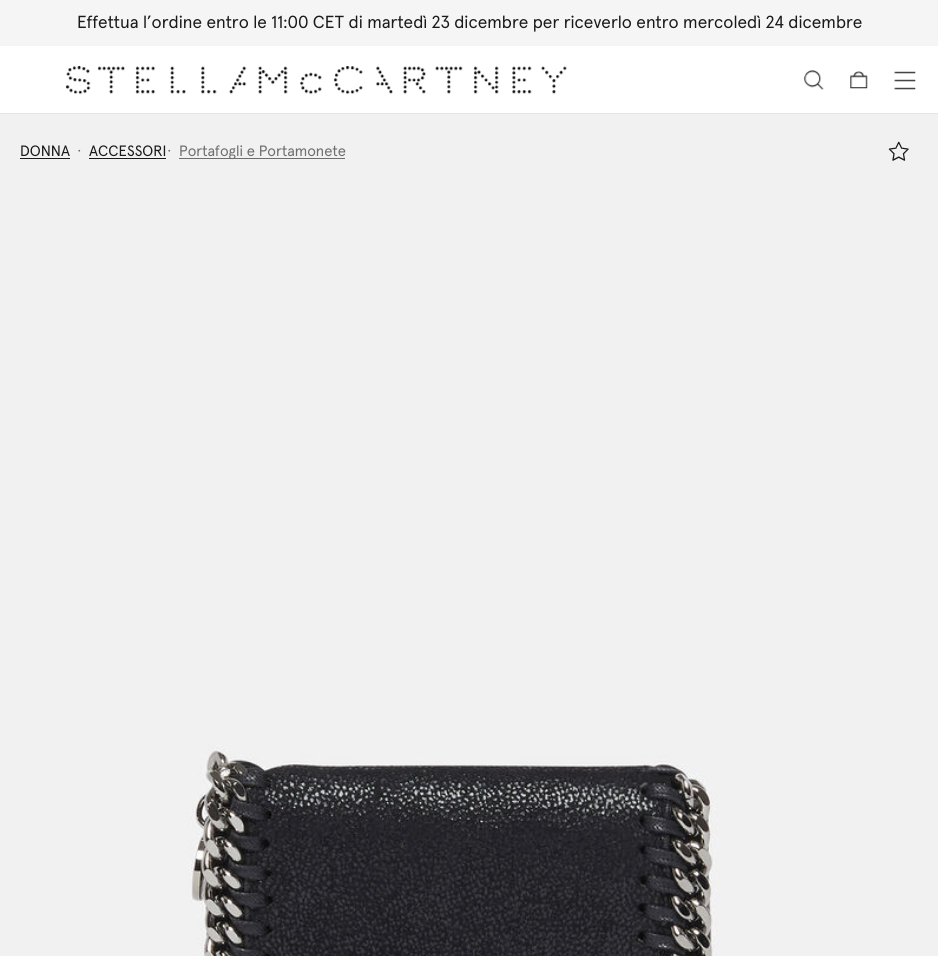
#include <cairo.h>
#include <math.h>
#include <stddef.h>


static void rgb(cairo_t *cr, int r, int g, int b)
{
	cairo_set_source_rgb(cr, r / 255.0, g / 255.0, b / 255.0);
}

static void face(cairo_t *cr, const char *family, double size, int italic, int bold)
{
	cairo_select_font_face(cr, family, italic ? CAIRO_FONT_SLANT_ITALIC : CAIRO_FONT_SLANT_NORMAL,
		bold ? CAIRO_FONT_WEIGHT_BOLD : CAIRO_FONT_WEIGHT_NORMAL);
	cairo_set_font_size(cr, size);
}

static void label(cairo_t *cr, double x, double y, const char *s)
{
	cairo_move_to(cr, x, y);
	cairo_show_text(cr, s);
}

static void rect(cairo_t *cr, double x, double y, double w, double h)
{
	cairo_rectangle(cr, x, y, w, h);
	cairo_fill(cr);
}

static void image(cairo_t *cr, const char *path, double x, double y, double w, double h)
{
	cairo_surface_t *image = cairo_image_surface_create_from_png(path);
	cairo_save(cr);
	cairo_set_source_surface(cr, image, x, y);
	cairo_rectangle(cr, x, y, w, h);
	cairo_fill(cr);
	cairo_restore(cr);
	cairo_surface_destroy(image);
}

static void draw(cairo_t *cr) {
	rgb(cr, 255, 255, 255);
	cairo_paint(cr);
	rgb(cr, 245, 245, 245);
	rect(cr, 0, 0, 938, 46);
	face(cr, "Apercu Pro", 17.5, 0, 0);
	rgb(cr, 26, 26, 26);
	label(cr, 77, 28, "Effettua l’ordine entro le 11:00 CET di martedì 23 dicembre per riceverlo entro mercoledì 24 dicembre");
	rgb(cr, 229, 229, 229);
	rect(cr, 0, 113, 938, 1);
	image(cr, "image0.png", 66, 66, 501, 29);
	image(cr, "image1.png", 804, 70, 20, 20);
	image(cr, "image2.png", 850, 71, 18, 18);
	image(cr, "image3.png", 894, 71, 22, 19);
	image(cr, "image4.png", 0, 114, 938, 842);
	face(cr, "Apercu Pro", 15, 0, 0);
	rgb(cr, 26, 26, 26);
	label(cr, 20, 156, "DONNA");
	rect(cr, 20, 158, 50, 1);
	rgb(cr, 110, 110, 110);
	label(cr, 77, 156, "·");
	rgb(cr, 26, 26, 26);
	label(cr, 89, 156, "ACCESSORI");
	rect(cr, 89, 158, 77, 1);
	rgb(cr, 110, 110, 110);
	label(cr, 167, 156, "·");
	rect(cr, 179, 158, 166, 1);
	label(cr, 179, 156, "Portafogli e Portamonete");
	image(cr, "image5.png", 888, 141, 21, 20);
}

int main(void) {
	cairo_surface_t *surface = cairo_image_surface_create(CAIRO_FORMAT_RGB24, 938, 956);
	cairo_t *cr = cairo_create(surface);
	cairo_font_options_t *options = cairo_font_options_create();
	cairo_font_options_set_hint_metrics(options, CAIRO_HINT_METRICS_OFF);
	cairo_font_options_set_hint_style(options, CAIRO_HINT_STYLE_NONE);
	cairo_set_font_options(cr, options);
	cairo_set_miter_limit(cr, 4);
	draw(cr);
	cairo_surface_write_to_png(surface, "render.png");
	cairo_font_options_destroy(options);
	cairo_destroy(cr);
	cairo_surface_destroy(surface);
	return 0;
}
